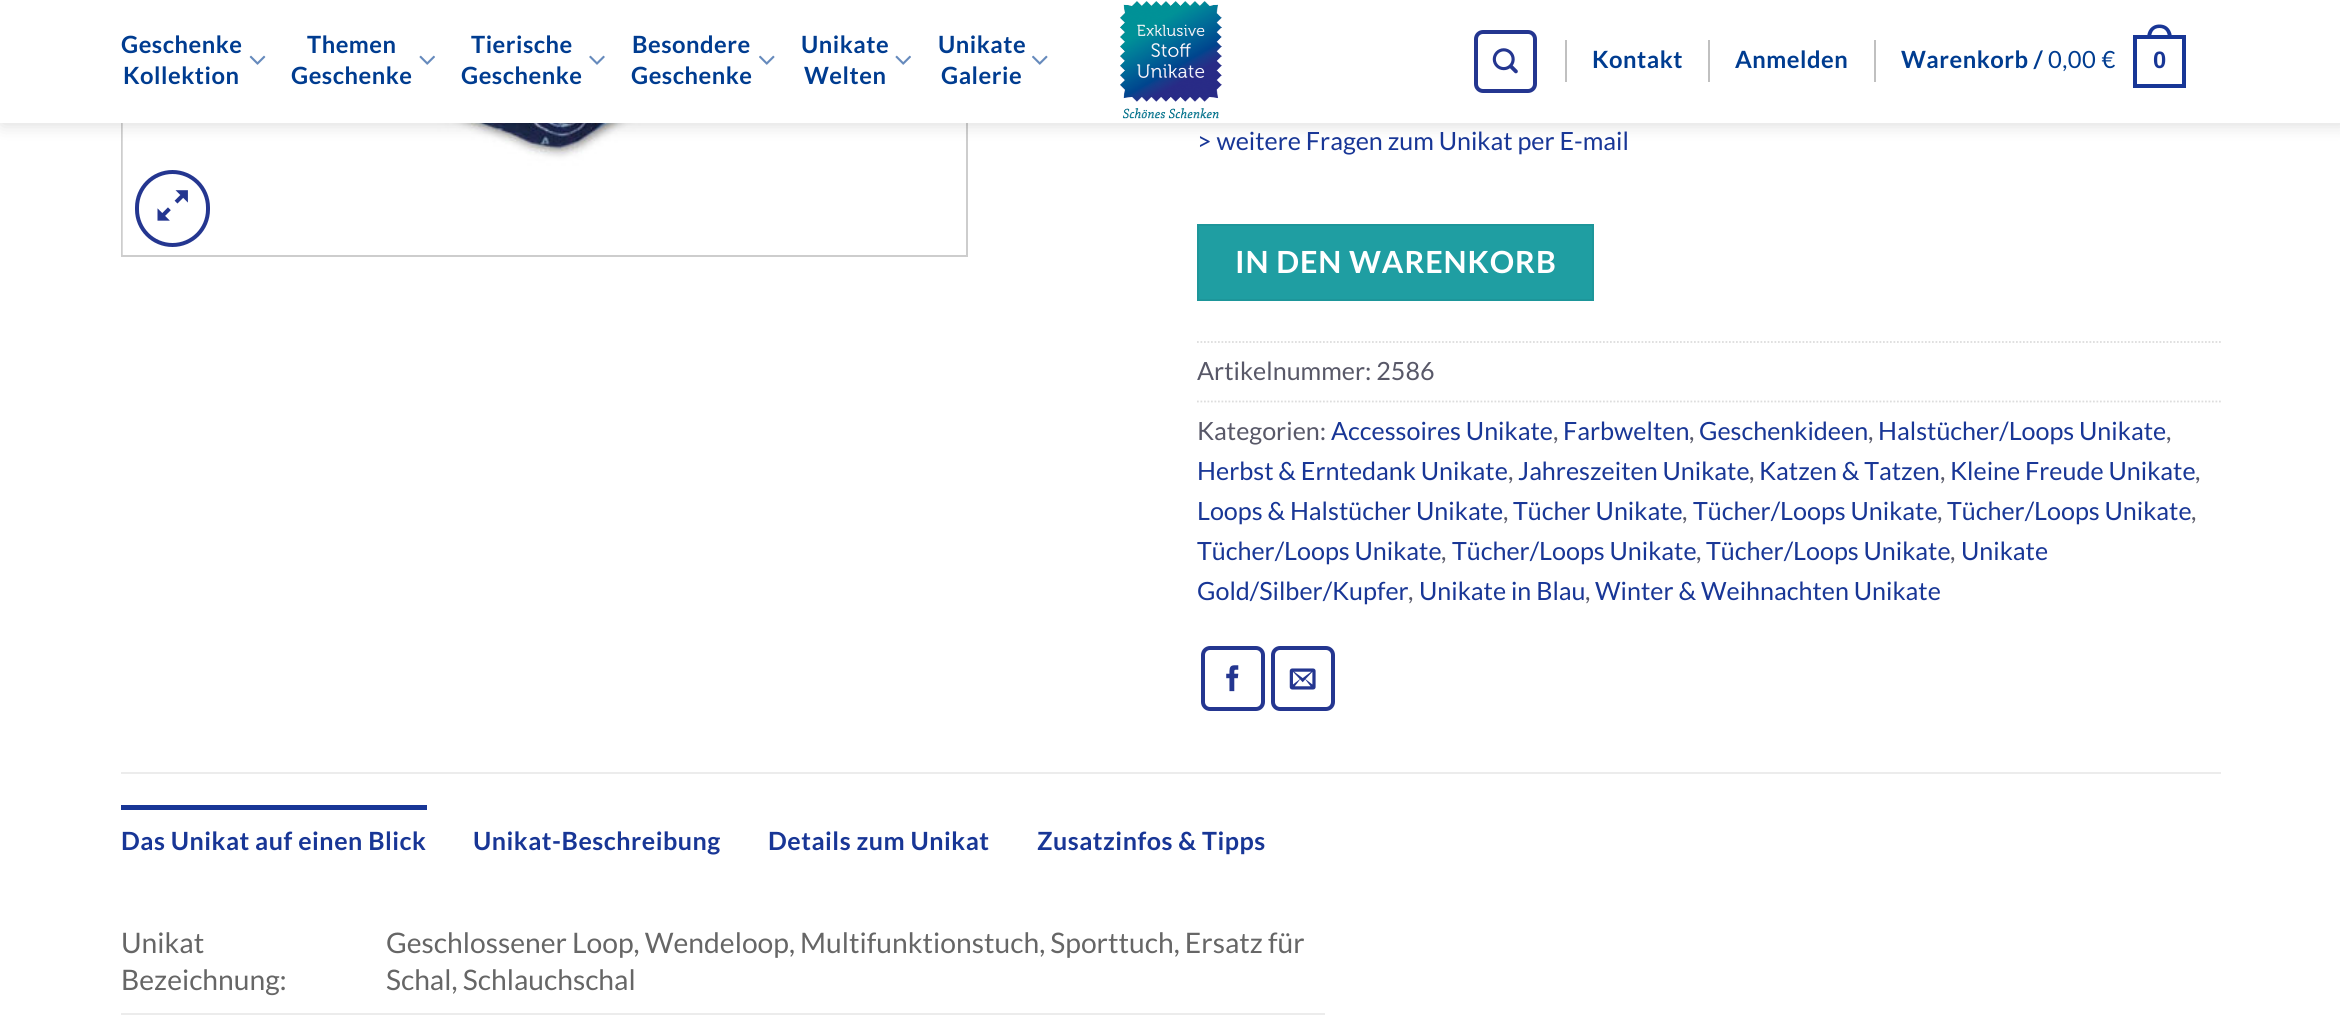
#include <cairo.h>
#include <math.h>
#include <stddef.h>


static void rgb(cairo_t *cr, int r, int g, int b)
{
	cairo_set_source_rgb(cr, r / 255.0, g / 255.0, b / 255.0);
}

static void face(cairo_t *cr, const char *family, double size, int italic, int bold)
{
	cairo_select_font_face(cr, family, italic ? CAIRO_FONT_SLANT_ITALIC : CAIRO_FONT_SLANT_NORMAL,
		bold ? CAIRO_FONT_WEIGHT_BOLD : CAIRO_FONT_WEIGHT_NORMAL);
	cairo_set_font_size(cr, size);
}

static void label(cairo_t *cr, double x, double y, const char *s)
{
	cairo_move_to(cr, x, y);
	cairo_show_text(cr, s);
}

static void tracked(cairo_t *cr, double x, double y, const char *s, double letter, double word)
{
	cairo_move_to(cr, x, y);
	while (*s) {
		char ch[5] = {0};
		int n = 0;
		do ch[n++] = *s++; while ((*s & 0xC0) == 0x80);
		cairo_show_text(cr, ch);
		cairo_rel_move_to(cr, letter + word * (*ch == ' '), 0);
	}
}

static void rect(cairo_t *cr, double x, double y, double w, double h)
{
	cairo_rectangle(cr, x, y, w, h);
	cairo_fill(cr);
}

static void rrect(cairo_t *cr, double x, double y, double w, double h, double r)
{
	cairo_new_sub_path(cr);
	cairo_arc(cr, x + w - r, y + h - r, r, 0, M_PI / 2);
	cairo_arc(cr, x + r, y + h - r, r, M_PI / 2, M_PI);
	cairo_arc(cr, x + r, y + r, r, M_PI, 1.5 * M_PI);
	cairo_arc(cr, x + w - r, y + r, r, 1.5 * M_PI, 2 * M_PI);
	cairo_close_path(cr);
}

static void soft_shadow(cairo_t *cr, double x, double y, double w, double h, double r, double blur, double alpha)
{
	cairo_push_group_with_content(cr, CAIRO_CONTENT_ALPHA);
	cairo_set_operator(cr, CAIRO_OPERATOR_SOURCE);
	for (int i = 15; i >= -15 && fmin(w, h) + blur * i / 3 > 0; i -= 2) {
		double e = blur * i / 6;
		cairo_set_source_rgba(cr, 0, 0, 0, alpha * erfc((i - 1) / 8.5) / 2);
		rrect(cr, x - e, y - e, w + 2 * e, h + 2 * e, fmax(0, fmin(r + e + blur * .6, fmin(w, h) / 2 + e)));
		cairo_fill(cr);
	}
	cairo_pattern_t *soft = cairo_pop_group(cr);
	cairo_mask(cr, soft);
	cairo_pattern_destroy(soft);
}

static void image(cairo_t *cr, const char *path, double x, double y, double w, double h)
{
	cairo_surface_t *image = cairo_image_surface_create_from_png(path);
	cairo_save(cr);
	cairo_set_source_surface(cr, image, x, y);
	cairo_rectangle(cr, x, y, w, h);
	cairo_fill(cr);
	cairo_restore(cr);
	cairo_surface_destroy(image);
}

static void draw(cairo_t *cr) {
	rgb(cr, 255, 255, 255);
	cairo_paint(cr);
	cairo_rectangle(cr, 122, -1, 845, 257);
	rgb(cr, 205, 205, 205);
	cairo_stroke(cr);
	image(cr, "image6.png", 122, 123, 706, 132);
	rgb(cr, 0, 0, 0);
	soft_shadow(cr, 2, 2, 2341, 122, 0, 9, 0.15);
	rgb(cr, 255, 255, 255);
	rect(cr, 0, 0, 2340, 123);
	face(cr, "Lato", 23.75, 0, 1);
	rgb(cr, 0, 60, 144);
	tracked(cr, 121, 53, "Geschenke", 0.5, 0);
	image(cr, "image0.png", 249, 55, 17, 10);
	tracked(cr, 123, 84, "Kollektion", 0.5, 0);
	tracked(cr, 307, 53, "Themen", 0.5, 0);
	image(cr, "image1.png", 419, 55, 16, 10);
	tracked(cr, 291, 84, "Geschenke", 0.5, 0);
	tracked(cr, 471, 53, "Tierische", 0.5, 0);
	image(cr, "image2.png", 589, 55, 16, 10);
	tracked(cr, 461, 84, "Geschenke", 0.5, 0);
	tracked(cr, 632, 53, "Besondere", 0.5, 0);
	image(cr, "image3.png", 759, 55, 16, 10);
	tracked(cr, 631, 84, "Geschenke", 0.5, 0);
	tracked(cr, 801, 53, "Unikate", 0.5, 0);
	image(cr, "image1.png", 895, 55, 16, 10);
	tracked(cr, 804, 84, "Welten", 0.5, 0);
	tracked(cr, 938, 53, "Unikate", 0.5, 0);
	image(cr, "image3.png", 1032, 55, 16, 10);
	tracked(cr, 941, 84, "Galerie", 0.5, 0);
	image(cr, "image4.png", 1120, 1, 102, 118);
	rrect(cr, 1476, 32, 59, 59, 7);
	rgb(cr, 36, 54, 144);
	cairo_set_line_width(cr, 4);
	cairo_stroke(cr);
	image(cr, "image5.png", 1492, 48, 26, 26);
	rgb(cr, 192, 192, 192);
	rect(cr, 1565, 40, 2, 42);
	rgb(cr, 0, 60, 144);
	tracked(cr, 1592, 68, "Kontakt", 0.5, 0);
	rgb(cr, 192, 192, 192);
	rect(cr, 1708, 40, 2, 42);
	rgb(cr, 0, 60, 144);
	tracked(cr, 1735, 68, "Anmelden", 0.5, 0);
	rgb(cr, 192, 192, 192);
	rect(cr, 1874, 40, 2, 42);
	rgb(cr, 0, 60, 144);
	tracked(cr, 1901, 68, "Warenkorb /", 0.5, 0);
	face(cr, "Lato", 23.75, 0, 0);
	tracked(cr, 2048, 68, "0,00 €", 0.5, 0);
	cairo_rectangle(cr, 2135, 37, 49, 49);
	rgb(cr, 24, 54, 150);
	cairo_stroke(cr);
	cairo_set_fill_rule(cr, CAIRO_FILL_RULE_EVEN_ODD);
	cairo_new_path(cr);
	cairo_move_to(cr, 2159.5, 24.5);
	cairo_curve_to(cr, 2168, 24.5, 2172, 31, 2172, 38.5);
	cairo_line_to(cr, 2147, 38.5);
	cairo_curve_to(cr, 2147, 31, 2151, 24.5, 2159.5, 24.5);
	cairo_close_path(cr);
	cairo_move_to(cr, 2159.5, 28);
	cairo_curve_to(cr, 2166, 28, 2168, 33, 2168, 38.5);
	cairo_line_to(cr, 2151, 38.5);
	cairo_curve_to(cr, 2151, 33, 2153, 28, 2159.5, 28);
	cairo_close_path(cr);
	cairo_fill(cr);
	face(cr, "Liberation Sans", 23.75, 0, 1);
	tracked(cr, 2153, 68, "0", 0.5, 0);
	rrect(cr, 137, 172, 71, 73, 35.5);
	rgb(cr, 36, 54, 144);
	cairo_stroke(cr);
	image(cr, "image7.png", 157, 190, 31, 31);
	face(cr, "Lato", 25.1, 0, 0);
	rgb(cr, 24, 54, 150);
	label(cr, 1197, 150, "> weitere Fragen zum Unikat per E-mail");
	rgb(cr, 31, 158, 162);
	cairo_rectangle(cr, 1198, 225, 395, 75);
	cairo_fill_preserve(cr);
	rgb(cr, 29, 150, 154);
	cairo_set_line_width(cr, 2);
	cairo_stroke(cr);
	face(cr, "Lato", 30.5, 0, 1);
	rgb(cr, 255, 255, 255);
	tracked(cr, 1235, 273, "IN DEN WARENKORB", 0.9, 0);
	cairo_new_path(cr);
	cairo_move_to(cr, 1197, 342);
	cairo_line_to(cr, 2221, 342);
	rgb(cr, 221, 221, 221);
	cairo_set_line_width(cr, 1.8);
	cairo_set_dash(cr, (double[]){1.75, 1.75}, 2, 0);
	cairo_stroke(cr);
	face(cr, "Lato", 25.1, 0, 0);
	rgb(cr, 88, 88, 104);
	label(cr, 1197, 380, "Artikelnummer: 2586");
	cairo_new_path(cr);
	cairo_move_to(cr, 1197, 401.5);
	cairo_line_to(cr, 2221, 401.5);
	rgb(cr, 221, 221, 221);
	cairo_stroke(cr);
	rgb(cr, 88, 88, 104);
	label(cr, 1197, 440, "Kategorien:");
	rgb(cr, 24, 54, 150);
	label(cr, 1331, 440, "Accessoires Unikate");
	rgb(cr, 88, 88, 104);
	label(cr, 1553, 440, ",");
	rgb(cr, 24, 54, 150);
	label(cr, 1563, 440, "Farbwelten");
	rgb(cr, 88, 88, 104);
	label(cr, 1689, 440, ",");
	rgb(cr, 24, 54, 150);
	label(cr, 1699, 440, "Geschenkideen");
	rgb(cr, 88, 88, 104);
	label(cr, 1868, 440, ",");
	rgb(cr, 24, 54, 150);
	label(cr, 1878, 440, "Halstücher/Loops Unikate");
	rgb(cr, 88, 88, 104);
	label(cr, 2166, 440, ",");
	rgb(cr, 24, 54, 150);
	label(cr, 1197, 480, "Herbst & Erntedank Unikate");
	rgb(cr, 88, 88, 104);
	label(cr, 1508, 480, ",");
	rgb(cr, 24, 54, 150);
	label(cr, 1518, 480, "Jahreszeiten Unikate");
	rgb(cr, 88, 88, 104);
	label(cr, 1749, 480, ",");
	rgb(cr, 24, 54, 150);
	label(cr, 1759, 480, "Katzen & Tatzen");
	rgb(cr, 88, 88, 104);
	label(cr, 1940, 480, ",");
	rgb(cr, 24, 54, 150);
	label(cr, 1950, 480, "Kleine Freude Unikate");
	rgb(cr, 88, 88, 104);
	label(cr, 2195, 480, ",");
	rgb(cr, 24, 54, 150);
	label(cr, 1197, 520, "Loops & Halstücher Unikate");
	rgb(cr, 88, 88, 104);
	label(cr, 1503, 520, ",");
	rgb(cr, 24, 54, 150);
	label(cr, 1513, 520, "Tücher Unikate");
	rgb(cr, 88, 88, 104);
	label(cr, 1682, 520, ",");
	rgb(cr, 24, 54, 150);
	label(cr, 1693, 520, "Tücher/Loops Unikate");
	rgb(cr, 88, 88, 104);
	label(cr, 1937, 520, ",");
	rgb(cr, 24, 54, 150);
	label(cr, 1947, 520, "Tücher/Loops Unikate");
	rgb(cr, 88, 88, 104);
	label(cr, 2191, 520, ",");
	rgb(cr, 24, 54, 150);
	label(cr, 1197, 560, "Tücher/Loops Unikate");
	rgb(cr, 88, 88, 104);
	label(cr, 1441, 560, ",");
	rgb(cr, 24, 54, 150);
	label(cr, 1452, 560, "Tücher/Loops Unikate");
	rgb(cr, 88, 88, 104);
	label(cr, 1696, 560, ",");
	rgb(cr, 24, 54, 150);
	label(cr, 1706, 560, "Tücher/Loops Unikate");
	rgb(cr, 88, 88, 104);
	label(cr, 1950, 560, ",");
	rgb(cr, 24, 54, 150);
	label(cr, 1961, 560, "Unikate");
	label(cr, 1197, 600, "Gold/Silber/Kupfer");
	rgb(cr, 88, 88, 104);
	label(cr, 1408, 600, ",");
	rgb(cr, 24, 54, 150);
	label(cr, 1419, 600, "Unikate in Blau");
	rgb(cr, 88, 88, 104);
	label(cr, 1585, 600, ",");
	rgb(cr, 24, 54, 150);
	label(cr, 1595, 600, "Winter & Weihnachten Unikate");
	rrect(cr, 1203, 648, 60, 61, 7);
	rgb(cr, 36, 54, 144);
	cairo_set_line_width(cr, 4);
	cairo_set_dash(cr, NULL, 0, 0);
	cairo_stroke(cr);
	image(cr, "image8.png", 1226, 665, 13, 27);
	rrect(cr, 1273, 648, 60, 61, 7);
	cairo_stroke(cr);
	image(cr, "image9.png", 1289, 668, 27, 22);
	rgb(cr, 236, 236, 236);
	rect(cr, 121, 772, 2100, 2);
	rgb(cr, 24, 54, 150);
	rect(cr, 121, 805, 306, 5);
	face(cr, "Lato", 25.1, 0, 1);
	tracked(cr, 121, 850, "Das Unikat auf einen Blick", 0.5, 0);
	tracked(cr, 473, 850, "Unikat-Beschreibung", 0.5, 0);
	tracked(cr, 768, 850, "Details zum Unikat", 0.5, 0);
	tracked(cr, 1037, 850, "Zusatzinfos & Tipps", 0.5, 0);
	rgb(cr, 236, 236, 236);
	rect(cr, 121, 1013, 1204, 2);
	face(cr, "Lato", 28.25, 0, 0);
	rgb(cr, 102, 102, 102);
	label(cr, 121, 953, "Unikat");
	label(cr, 121, 990, "Bezeichnung:");
	tracked(cr, 386, 953, "Geschlossener Loop, Wendeloop, Multifunktionstuch, Sporttuch, Ersatz für", 0, -0.25);
	label(cr, 386, 990, "Schal, Schlauchschal");
}

int main(void) {
	cairo_surface_t *surface = cairo_image_surface_create(CAIRO_FORMAT_RGB24, 2340, 1036);
	cairo_t *cr = cairo_create(surface);
	cairo_font_options_t *options = cairo_font_options_create();
	cairo_font_options_set_hint_metrics(options, CAIRO_HINT_METRICS_OFF);
	cairo_font_options_set_hint_style(options, CAIRO_HINT_STYLE_NONE);
	cairo_set_font_options(cr, options);
	cairo_set_miter_limit(cr, 4);
	draw(cr);
	cairo_surface_write_to_png(surface, "render.png");
	cairo_font_options_destroy(options);
	cairo_destroy(cr);
	cairo_surface_destroy(surface);
	return 0;
}
